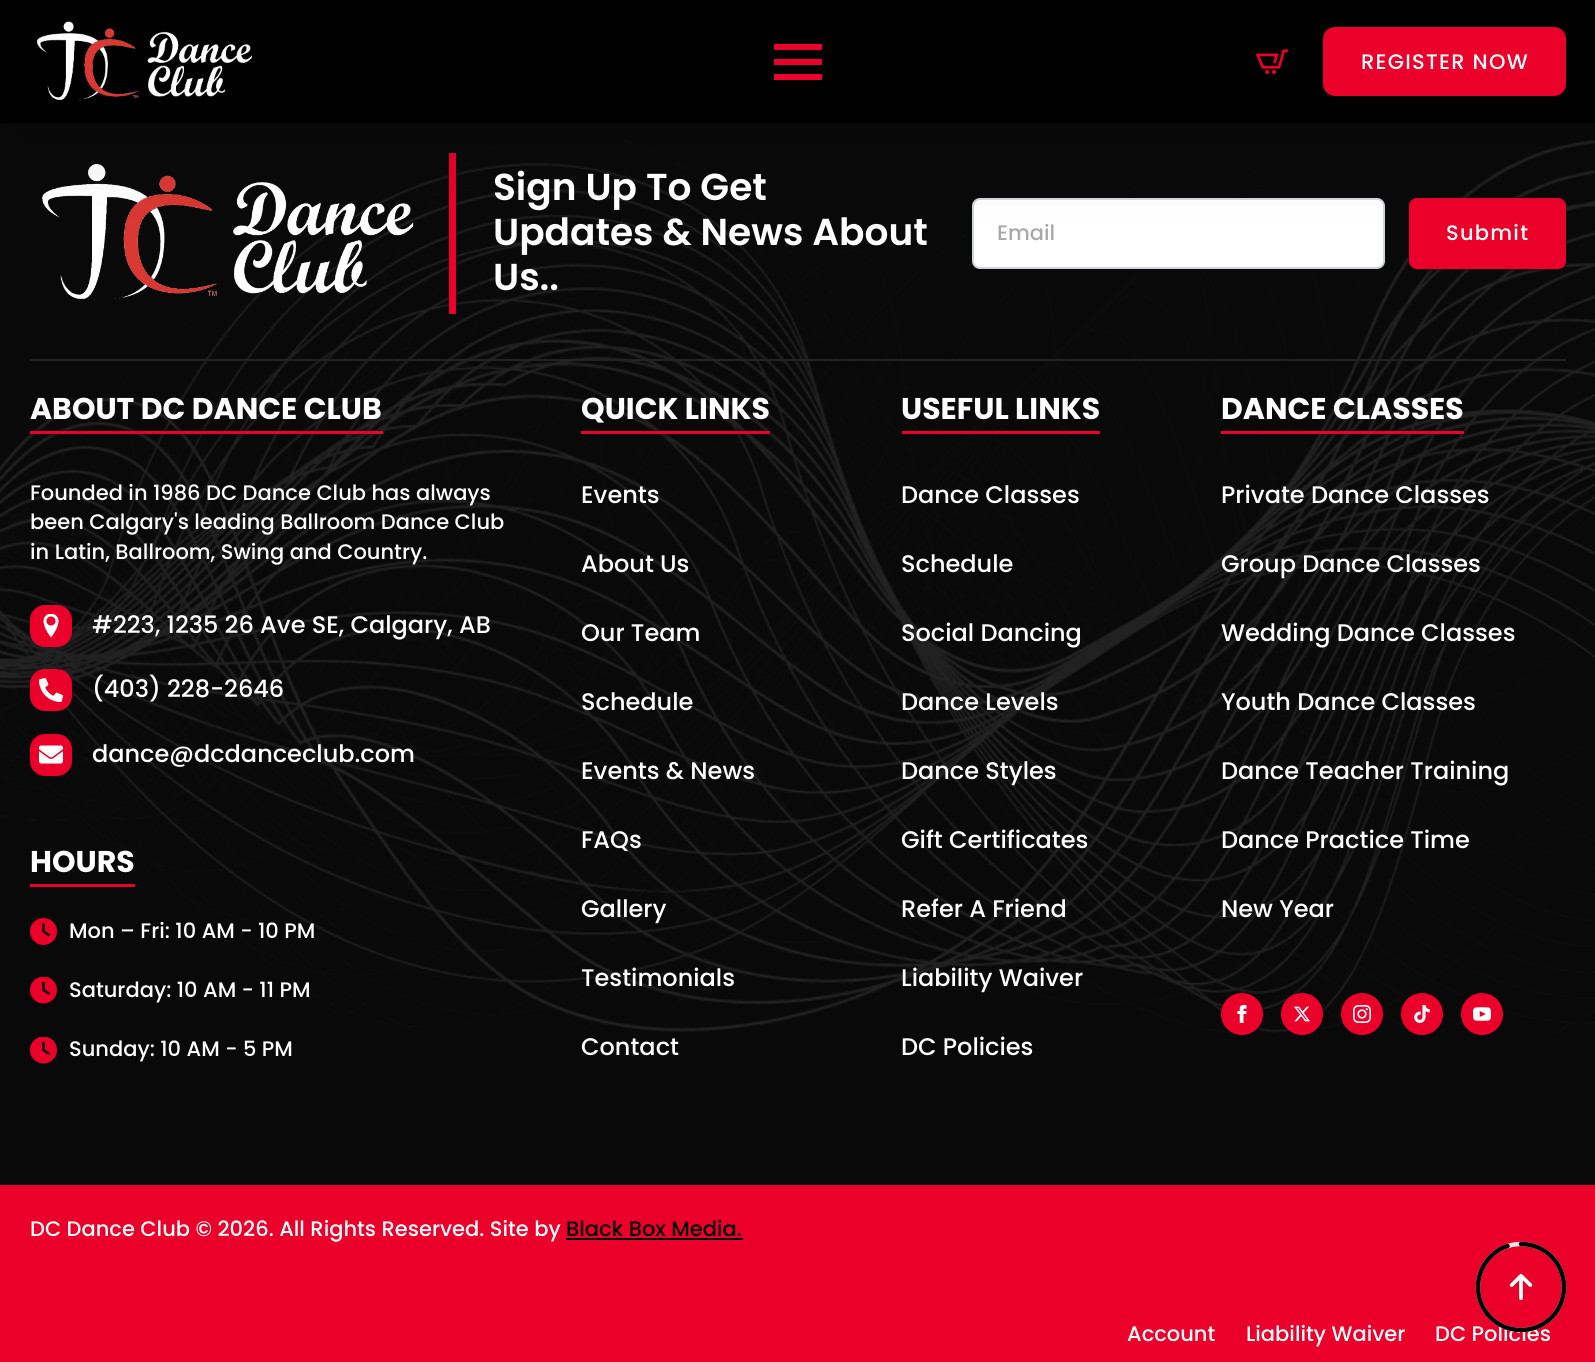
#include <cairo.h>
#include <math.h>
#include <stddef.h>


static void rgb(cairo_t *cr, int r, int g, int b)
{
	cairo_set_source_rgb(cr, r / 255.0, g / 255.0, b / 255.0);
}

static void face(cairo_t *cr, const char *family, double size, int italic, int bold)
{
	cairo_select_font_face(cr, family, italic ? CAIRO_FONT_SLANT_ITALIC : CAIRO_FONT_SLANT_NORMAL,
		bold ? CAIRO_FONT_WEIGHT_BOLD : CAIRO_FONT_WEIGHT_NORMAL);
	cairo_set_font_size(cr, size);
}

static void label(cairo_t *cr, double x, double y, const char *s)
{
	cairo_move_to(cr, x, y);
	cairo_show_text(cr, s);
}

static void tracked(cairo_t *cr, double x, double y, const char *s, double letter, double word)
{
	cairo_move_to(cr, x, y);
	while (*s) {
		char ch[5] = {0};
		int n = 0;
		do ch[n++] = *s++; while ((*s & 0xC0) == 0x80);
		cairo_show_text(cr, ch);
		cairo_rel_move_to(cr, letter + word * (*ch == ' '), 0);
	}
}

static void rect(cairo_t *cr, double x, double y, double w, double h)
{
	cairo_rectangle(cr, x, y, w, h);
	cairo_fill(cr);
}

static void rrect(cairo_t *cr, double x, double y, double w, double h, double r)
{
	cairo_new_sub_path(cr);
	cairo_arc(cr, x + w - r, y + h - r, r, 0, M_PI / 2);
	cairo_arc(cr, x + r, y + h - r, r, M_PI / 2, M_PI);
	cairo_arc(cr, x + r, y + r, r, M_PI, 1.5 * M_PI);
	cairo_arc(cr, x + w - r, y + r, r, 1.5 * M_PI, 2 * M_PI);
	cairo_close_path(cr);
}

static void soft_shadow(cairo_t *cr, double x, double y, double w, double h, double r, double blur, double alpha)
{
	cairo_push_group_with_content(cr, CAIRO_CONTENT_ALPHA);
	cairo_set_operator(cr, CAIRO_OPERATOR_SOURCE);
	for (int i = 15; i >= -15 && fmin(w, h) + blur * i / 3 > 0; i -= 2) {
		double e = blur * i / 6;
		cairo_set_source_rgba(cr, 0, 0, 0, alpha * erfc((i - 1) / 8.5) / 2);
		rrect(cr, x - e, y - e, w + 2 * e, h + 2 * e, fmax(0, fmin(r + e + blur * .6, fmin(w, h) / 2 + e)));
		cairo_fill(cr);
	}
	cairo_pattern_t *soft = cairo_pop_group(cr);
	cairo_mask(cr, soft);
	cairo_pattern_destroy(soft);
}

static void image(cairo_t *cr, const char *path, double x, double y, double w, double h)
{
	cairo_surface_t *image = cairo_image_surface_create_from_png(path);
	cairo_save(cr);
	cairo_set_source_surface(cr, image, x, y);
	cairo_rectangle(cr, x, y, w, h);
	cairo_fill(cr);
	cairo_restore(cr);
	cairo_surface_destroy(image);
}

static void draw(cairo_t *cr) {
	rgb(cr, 9, 9, 9);
	cairo_paint(cr);
	image(cr, "image2.png", 0, 140, 1595, 893);
	rgb(cr, 235, 0, 41);
	rect(cr, 449, 153, 7, 161);
	image(cr, "image3.png", 42, 164, 372, 135);
	rgb(cr, 255, 255, 255);
	rrect(cr, 973, 199, 411, 69, 7);
	cairo_fill_preserve(cr);
	rgb(cr, 209, 213, 219);
	cairo_stroke(cr);
	rgb(cr, 235, 0, 41);
	rrect(cr, 1409, 198, 157, 71, 8);
	cairo_fill(cr);
	rgb(cr, 0, 0, 0);
	soft_shadow(cr, 15, 15, 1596, 123, 0, 45, 0.14);
	rgb(cr, 0, 0, 0);
	rect(cr, 0, 0, 1595, 123);
	image(cr, "image0.png", 36, 21, 216, 80);
	rgb(cr, 235, 0, 41);
	rect(cr, 774, 59, 48, 6);
	rect(cr, 774, 44, 48, 6);
	rect(cr, 774, 74, 48, 6);
	image(cr, "image1.png", 1256, 49, 33, 26);
	rrect(cr, 1323, 27, 243, 69, 12);
	cairo_fill(cr);
	face(cr, "Poppins Medium", 21, 0, 0);
	rgb(cr, 255, 255, 255);
	tracked(cr, 1361, 69, "REGISTER NOW", 1.25, 0);
	face(cr, "Poppins SemiBold", 37.5, 0, 0);
	label(cr, 493, 200, "Sign Up To Get");
	label(cr, 493, 245, "Updates & News About");
	label(cr, 493, 290, "Us..");
	face(cr, "Poppins Medium", 21, 0, 0);
	rgb(cr, 171, 168, 168);
	label(cr, 997, 240, "Email");
	rgb(cr, 255, 255, 255);
	tracked(cr, 1446, 240, "Submit", 1.25, 0);
	rgb(cr, 35, 35, 35);
	rect(cr, 30, 359, 1536, 2);
	face(cr, "Poppins", 30, 0, 1);
	rgb(cr, 255, 255, 255);
	label(cr, 30, 419, "ABOUT DC DANCE CLUB");
	rgb(cr, 235, 0, 41);
	rect(cr, 30, 431, 353, 3);
	face(cr, "Poppins Medium", 21, 0, 0);
	rgb(cr, 255, 255, 255);
	label(cr, 30, 500, "Founded in 1986 DC Dance Club has always");
	label(cr, 30, 529, "been Calgary's leading Ballroom Dance Club");
	label(cr, 30, 559, "in Latin, Ballroom, Swing and Country.");
	rgb(cr, 235, 0, 41);
	rrect(cr, 30, 605, 42, 42, 15);
	cairo_fill(cr);
	image(cr, "image4.png", 43, 614, 16, 24);
	face(cr, "Poppins Medium", 24, 0, 0);
	rgb(cr, 255, 255, 255);
	label(cr, 92, 633, "#223, 1235 26 Ave SE, Calgary, AB");
	rgb(cr, 235, 0, 41);
	rrect(cr, 30, 669, 42, 42, 15);
	cairo_fill(cr);
	image(cr, "image5.png", 39, 678, 24, 24);
	rgb(cr, 255, 255, 255);
	label(cr, 92, 697, "(403) 228-2646");
	rgb(cr, 235, 0, 41);
	rrect(cr, 30, 734, 42, 42, 15);
	cairo_fill(cr);
	image(cr, "image6.png", 39, 745, 24, 19);
	rgb(cr, 255, 255, 255);
	label(cr, 92, 762, "dance@dcdanceclub.com");
	face(cr, "Poppins", 30, 0, 1);
	label(cr, 30, 872, "HOURS");
	rgb(cr, 235, 0, 41);
	rect(cr, 30, 884, 105, 3);
	image(cr, "image7.png", 30, 918, 27, 27);
	face(cr, "Poppins Medium", 21, 0, 0);
	rgb(cr, 255, 255, 255);
	label(cr, 69, 938, "Mon – Fri: 10 AM - 10 PM");
	image(cr, "image8.png", 30, 977, 27, 27);
	label(cr, 69, 997, "Saturday: 10 AM - 11 PM");
	image(cr, "image8.png", 30, 1037, 27, 27);
	label(cr, 69, 1056, "Sunday: 10 AM - 5 PM");
	face(cr, "Poppins", 30, 0, 1);
	label(cr, 581, 419, "QUICK LINKS");
	rgb(cr, 235, 0, 41);
	rect(cr, 581, 431, 189, 3);
	face(cr, "Poppins Medium", 24, 0, 0);
	rgb(cr, 255, 255, 255);
	label(cr, 581, 503, "Events");
	label(cr, 581, 572, "About Us");
	label(cr, 581, 641, "Our Team");
	label(cr, 581, 710, "Schedule");
	label(cr, 581, 779, "Events & News");
	label(cr, 581, 848, "FAQs");
	label(cr, 581, 917, "Gallery");
	label(cr, 581, 986, "Testimonials");
	label(cr, 581, 1055, "Contact");
	face(cr, "Poppins", 30, 0, 1);
	label(cr, 901, 419, "USEFUL LINKS");
	rgb(cr, 235, 0, 41);
	rect(cr, 902, 431, 198, 3);
	face(cr, "Poppins Medium", 24, 0, 0);
	rgb(cr, 255, 255, 255);
	label(cr, 901, 503, "Dance Classes");
	label(cr, 901, 572, "Schedule");
	label(cr, 901, 641, "Social Dancing");
	label(cr, 901, 710, "Dance Levels");
	label(cr, 901, 779, "Dance Styles");
	label(cr, 901, 848, "Gift Certificates");
	label(cr, 901, 917, "Refer A Friend");
	label(cr, 901, 986, "Liability Waiver");
	label(cr, 901, 1055, "DC Policies");
	face(cr, "Poppins", 30, 0, 1);
	label(cr, 1221, 419, "DANCE CLASSES");
	rgb(cr, 235, 0, 41);
	rect(cr, 1221, 431, 243, 3);
	face(cr, "Poppins Medium", 24, 0, 0);
	rgb(cr, 255, 255, 255);
	label(cr, 1221, 503, "Private Dance Classes");
	label(cr, 1221, 572, "Group Dance Classes");
	label(cr, 1221, 641, "Wedding Dance Classes");
	label(cr, 1221, 710, "Youth Dance Classes");
	label(cr, 1221, 779, "Dance Teacher Training");
	label(cr, 1221, 848, "Dance Practice Time");
	label(cr, 1221, 917, "New Year");
	rgb(cr, 235, 0, 41);
	cairo_new_path(cr);
	cairo_arc(cr, 1242, 1014, 21, 0, 2 * M_PI);
	cairo_fill(cr);
	image(cr, "image9.png", 1237, 1005, 10, 18);
	cairo_arc(cr, 1302, 1014, 21, 0, 2 * M_PI);
	cairo_fill(cr);
	image(cr, "image10.png", 1294, 1006, 16, 16);
	cairo_arc(cr, 1362, 1014, 21, 0, 2 * M_PI);
	cairo_fill(cr);
	image(cr, "image11.png", 1353, 1005, 18, 18);
	cairo_arc(cr, 1422, 1014, 21, 0, 2 * M_PI);
	cairo_fill(cr);
	image(cr, "image12.png", 1414, 1005, 16, 18);
	cairo_arc(cr, 1482, 1014, 21, 0, 2 * M_PI);
	cairo_fill(cr);
	image(cr, "image13.png", 1473, 1007, 18, 14);
	rect(cr, 0, 1185, 1595, 177);
	face(cr, "Poppins Medium", 21, 0, 0);
	rgb(cr, 255, 255, 255);
	label(cr, 30, 1236, "DC Dance Club © 2026. All Rights Reserved. Site by");
	rgb(cr, 0, 0, 0);
	label(cr, 566, 1236, "Black Box Media.");
	rect(cr, 566, 1238, 177, 2);
	rgb(cr, 255, 255, 255);
	label(cr, 1127, 1341, "Account");
	label(cr, 1246, 1341, "Liability Waiver");
	label(cr, 1435, 1341, "DC Policies");
	rgb(cr, 235, 0, 41);
	cairo_new_path(cr);
	cairo_arc(cr, 1521, 1287, 45, 0, 2 * M_PI);
	cairo_fill(cr);
	image(cr, "image14.png", 1509, 1273, 24, 28);
	cairo_new_path(cr);
	cairo_move_to(cr, 1521, 1244);
	cairo_curve_to(cr, 1545, 1244, 1564, 1263, 1564, 1287);
	cairo_curve_to(cr, 1564, 1311, 1545, 1330, 1521, 1330);
	cairo_curve_to(cr, 1497, 1330, 1478, 1311, 1478, 1287);
	cairo_curve_to(cr, 1478, 1263, 1497, 1244, 1521, 1244);
	rgb(cr, 229, 231, 235);
	cairo_set_line_width(cr, 4.4);
	cairo_set_line_cap(cr, CAIRO_LINE_CAP_ROUND);
	cairo_stroke(cr);
	cairo_new_path(cr);
	cairo_move_to(cr, 1521, 1244);
	cairo_curve_to(cr, 1545, 1244, 1564, 1263, 1564, 1287);
	cairo_curve_to(cr, 1564, 1311, 1545, 1330, 1521, 1330);
	cairo_curve_to(cr, 1497, 1330, 1478, 1311, 1478, 1287);
	cairo_curve_to(cr, 1478, 1268, 1490.5, 1251.5, 1507.5, 1246);
	rgb(cr, 0, 0, 0);
	cairo_stroke(cr);
}

int main(void) {
	cairo_surface_t *surface = cairo_image_surface_create(CAIRO_FORMAT_RGB24, 1595, 1362);
	cairo_t *cr = cairo_create(surface);
	cairo_font_options_t *options = cairo_font_options_create();
	cairo_font_options_set_hint_metrics(options, CAIRO_HINT_METRICS_OFF);
	cairo_font_options_set_hint_style(options, CAIRO_HINT_STYLE_NONE);
	cairo_set_font_options(cr, options);
	cairo_set_miter_limit(cr, 4);
	draw(cr);
	cairo_surface_write_to_png(surface, "render.png");
	cairo_font_options_destroy(options);
	cairo_destroy(cr);
	cairo_surface_destroy(surface);
	return 0;
}
